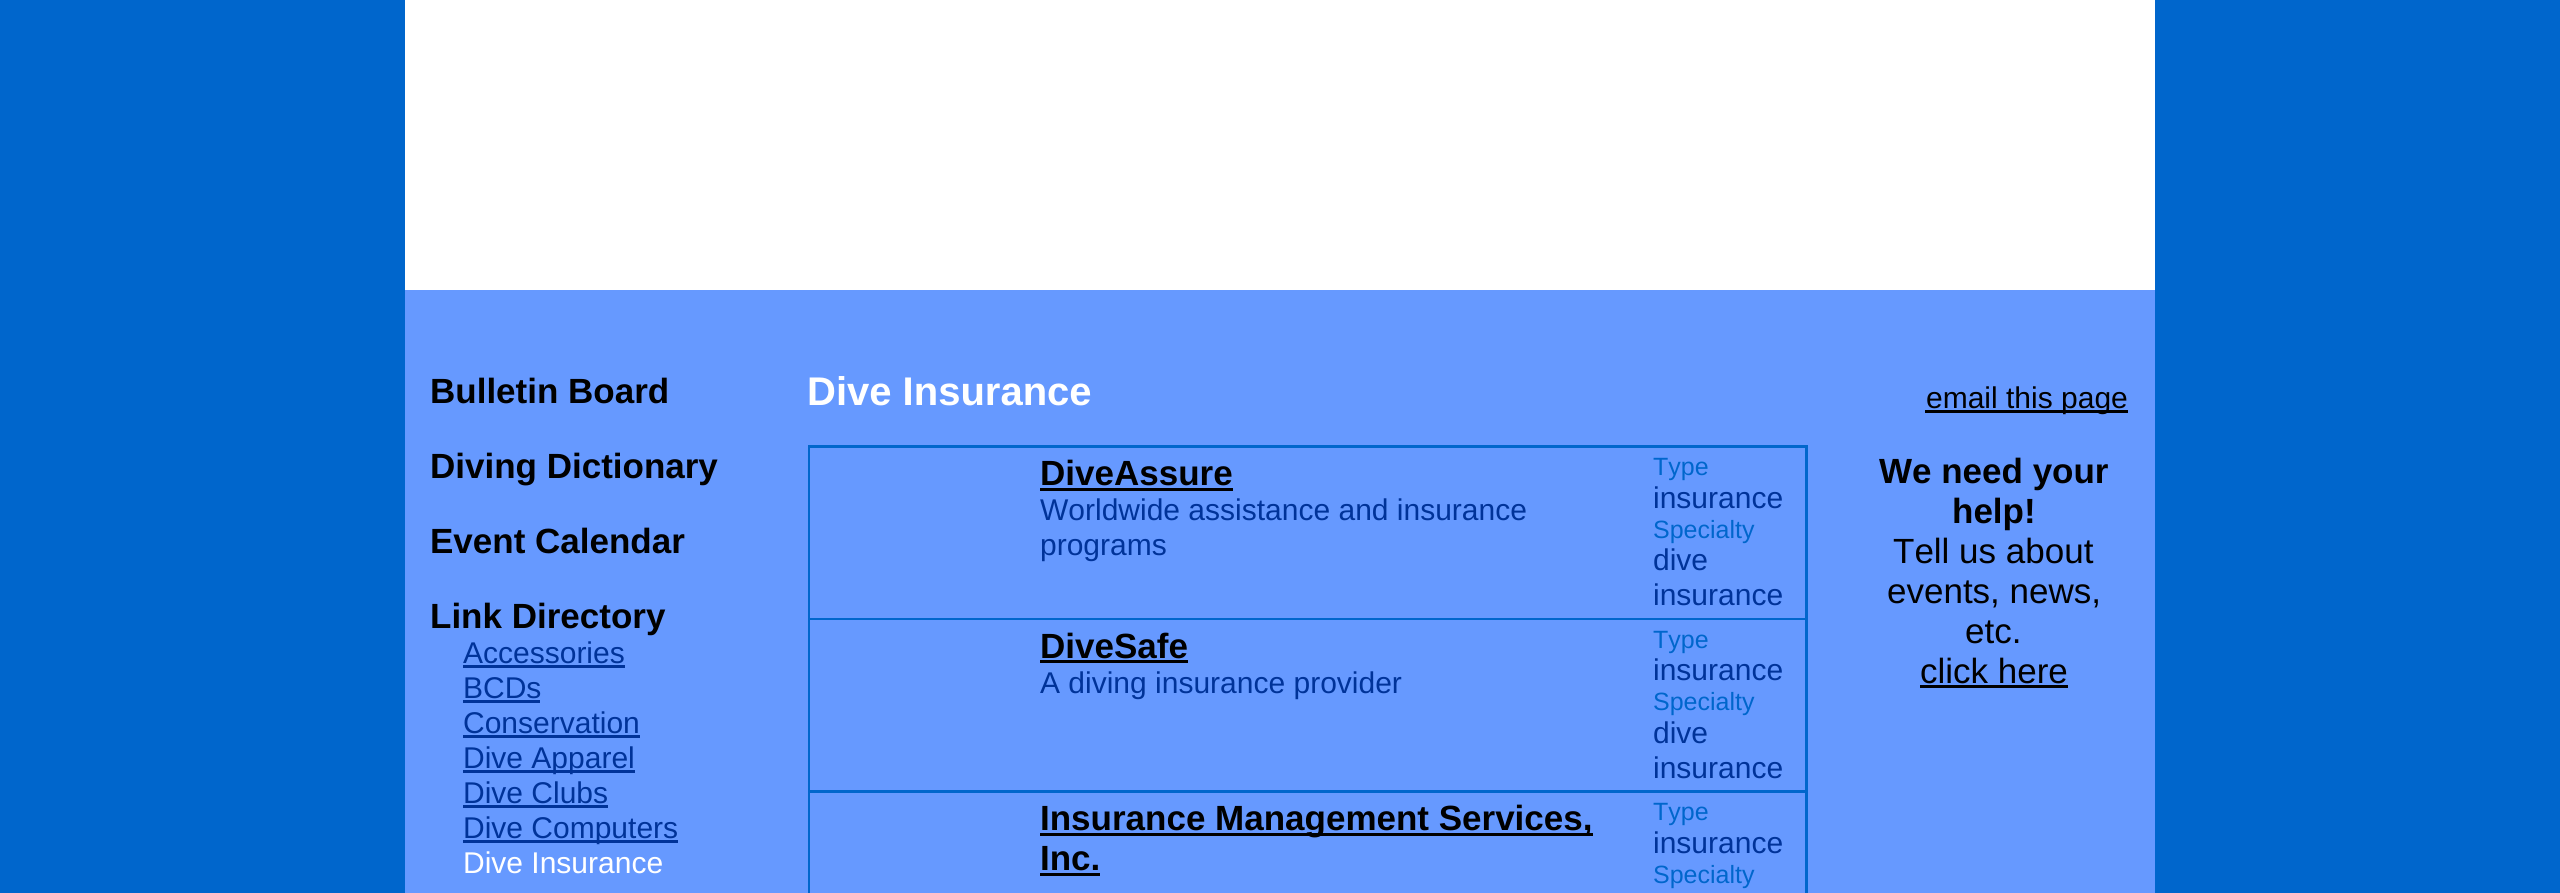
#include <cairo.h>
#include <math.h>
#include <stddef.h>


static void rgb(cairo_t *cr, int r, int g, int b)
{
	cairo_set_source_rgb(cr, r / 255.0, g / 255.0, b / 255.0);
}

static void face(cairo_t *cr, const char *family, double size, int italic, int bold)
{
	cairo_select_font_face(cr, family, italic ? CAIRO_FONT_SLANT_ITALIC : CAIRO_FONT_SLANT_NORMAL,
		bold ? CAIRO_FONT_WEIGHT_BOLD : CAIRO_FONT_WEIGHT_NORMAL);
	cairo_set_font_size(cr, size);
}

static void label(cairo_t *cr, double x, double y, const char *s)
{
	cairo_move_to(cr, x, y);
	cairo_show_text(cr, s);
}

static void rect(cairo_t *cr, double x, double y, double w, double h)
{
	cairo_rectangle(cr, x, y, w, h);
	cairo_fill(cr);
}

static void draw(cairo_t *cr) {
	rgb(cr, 0, 102, 204);
	cairo_paint(cr);
	rgb(cr, 255, 255, 255);
	rect(cr, 405, 0, 1750, 290);
	rgb(cr, 102, 153, 255);
	rect(cr, 405, 290, 1750, 603);
	face(cr, "Liberation Sans", 35, 0, 1);
	rgb(cr, 0, 0, 0);
	label(cr, 430, 403, "Bulletin Board");
	label(cr, 430, 478, "Diving Dictionary");
	label(cr, 430, 553, "Event Calendar");
	label(cr, 430, 628, "Link Directory");
	face(cr, "Liberation Sans", 30, 0, 0);
	rgb(cr, 0, 51, 153);
	label(cr, 463, 663, "Accessories");
	rect(cr, 463, 665, 162, 3);
	label(cr, 463, 698, "BCDs");
	rect(cr, 463, 700, 77, 3);
	label(cr, 463, 733, "Conservation");
	rect(cr, 463, 735, 177, 3);
	rect(cr, 463, 770, 172, 3);
	label(cr, 463, 768, "Dive Apparel");
	label(cr, 463, 803, "Dive Clubs");
	rect(cr, 463, 805, 145, 3);
	rect(cr, 463, 840, 215, 3);
	label(cr, 463, 838, "Dive Computers");
	rgb(cr, 255, 255, 255);
	label(cr, 463, 873, "Dive Insurance");
	face(cr, "Liberation Sans", 40, 0, 1);
	label(cr, 807, 405, "Dive Insurance");
	rgb(cr, 0, 102, 204);
	rect(cr, 808, 445, 1000, 448);
	rgb(cr, 102, 153, 255);
	rect(cr, 810, 448, 995, 170);
	face(cr, "Liberation Sans", 35, 0, 1);
	rgb(cr, 0, 0, 0);
	label(cr, 1040, 485, "DiveAssure");
	rect(cr, 1040, 488, 193, 3);
	face(cr, "Liberation Sans", 30, 0, 0);
	rgb(cr, 0, 51, 153);
	label(cr, 1040, 520, "Worldwide assistance and insurance");
	label(cr, 1040, 555, "programs");
	face(cr, "Liberation Sans", 25, 0, 0);
	rgb(cr, 0, 102, 204);
	label(cr, 1653, 475, "Type");
	face(cr, "Liberation Sans", 30, 0, 0);
	rgb(cr, 0, 51, 153);
	label(cr, 1653, 508, "insurance");
	face(cr, "Liberation Sans", 25, 0, 0);
	rgb(cr, 0, 102, 204);
	label(cr, 1653, 538, "Specialty");
	face(cr, "Liberation Sans", 30, 0, 0);
	rgb(cr, 0, 51, 153);
	label(cr, 1653, 570, "dive");
	label(cr, 1653, 605, "insurance");
	rgb(cr, 102, 153, 255);
	rect(cr, 810, 620, 995, 170);
	face(cr, "Liberation Sans", 35, 0, 1);
	rgb(cr, 0, 0, 0);
	label(cr, 1040, 658, "DiveSafe");
	rect(cr, 1040, 660, 148, 3);
	face(cr, "Liberation Sans", 30, 0, 0);
	rgb(cr, 0, 51, 153);
	label(cr, 1040, 693, "A diving insurance provider");
	face(cr, "Liberation Sans", 25, 0, 0);
	rgb(cr, 0, 102, 204);
	label(cr, 1653, 648, "Type");
	face(cr, "Liberation Sans", 30, 0, 0);
	rgb(cr, 0, 51, 153);
	label(cr, 1653, 680, "insurance");
	face(cr, "Liberation Sans", 25, 0, 0);
	rgb(cr, 0, 102, 204);
	label(cr, 1653, 710, "Specialty");
	face(cr, "Liberation Sans", 30, 0, 0);
	rgb(cr, 0, 51, 153);
	label(cr, 1653, 743, "dive");
	label(cr, 1653, 778, "insurance");
	rgb(cr, 102, 153, 255);
	rect(cr, 810, 793, 995, 100);
	rgb(cr, 0, 0, 0);
	rect(cr, 1040, 833, 553, 3);
	face(cr, "Liberation Sans", 35, 0, 1);
	label(cr, 1040, 830, "Insurance Management Services,");
	label(cr, 1040, 870, "Inc.");
	rect(cr, 1040, 873, 60, 3);
	face(cr, "Liberation Sans", 25, 0, 0);
	rgb(cr, 0, 102, 204);
	label(cr, 1653, 820, "Type");
	face(cr, "Liberation Sans", 30, 0, 0);
	rgb(cr, 0, 51, 153);
	label(cr, 1653, 853, "insurance");
	face(cr, "Liberation Sans", 25, 0, 0);
	rgb(cr, 0, 102, 204);
	label(cr, 1653, 883, "Specialty");
	rgb(cr, 0, 0, 0);
	rect(cr, 1925, 410, 203, 3);
	face(cr, "Liberation Sans", 30, 0, 0);
	label(cr, 1926, 408, "email this page");
	face(cr, "Liberation Sans", 35, 0, 1);
	label(cr, 1879, 483, "We need your");
	label(cr, 1952, 523, "help!");
	face(cr, "Liberation Sans", 35, 0, 0);
	label(cr, 1893, 563, "Tell us about");
	label(cr, 1887, 603, "events, news,");
	label(cr, 1965, 643, "etc.");
	label(cr, 1920, 683, "click here");
	rect(cr, 1920, 685, 148, 3);
}

int main(void) {
	cairo_surface_t *surface = cairo_image_surface_create(CAIRO_FORMAT_RGB24, 2560, 893);
	cairo_t *cr = cairo_create(surface);
	cairo_font_options_t *options = cairo_font_options_create();
	cairo_font_options_set_hint_metrics(options, CAIRO_HINT_METRICS_OFF);
	cairo_font_options_set_hint_style(options, CAIRO_HINT_STYLE_NONE);
	cairo_set_font_options(cr, options);
	cairo_set_miter_limit(cr, 4);
	draw(cr);
	cairo_surface_write_to_png(surface, "render.png");
	cairo_font_options_destroy(options);
	cairo_destroy(cr);
	cairo_surface_destroy(surface);
	return 0;
}
